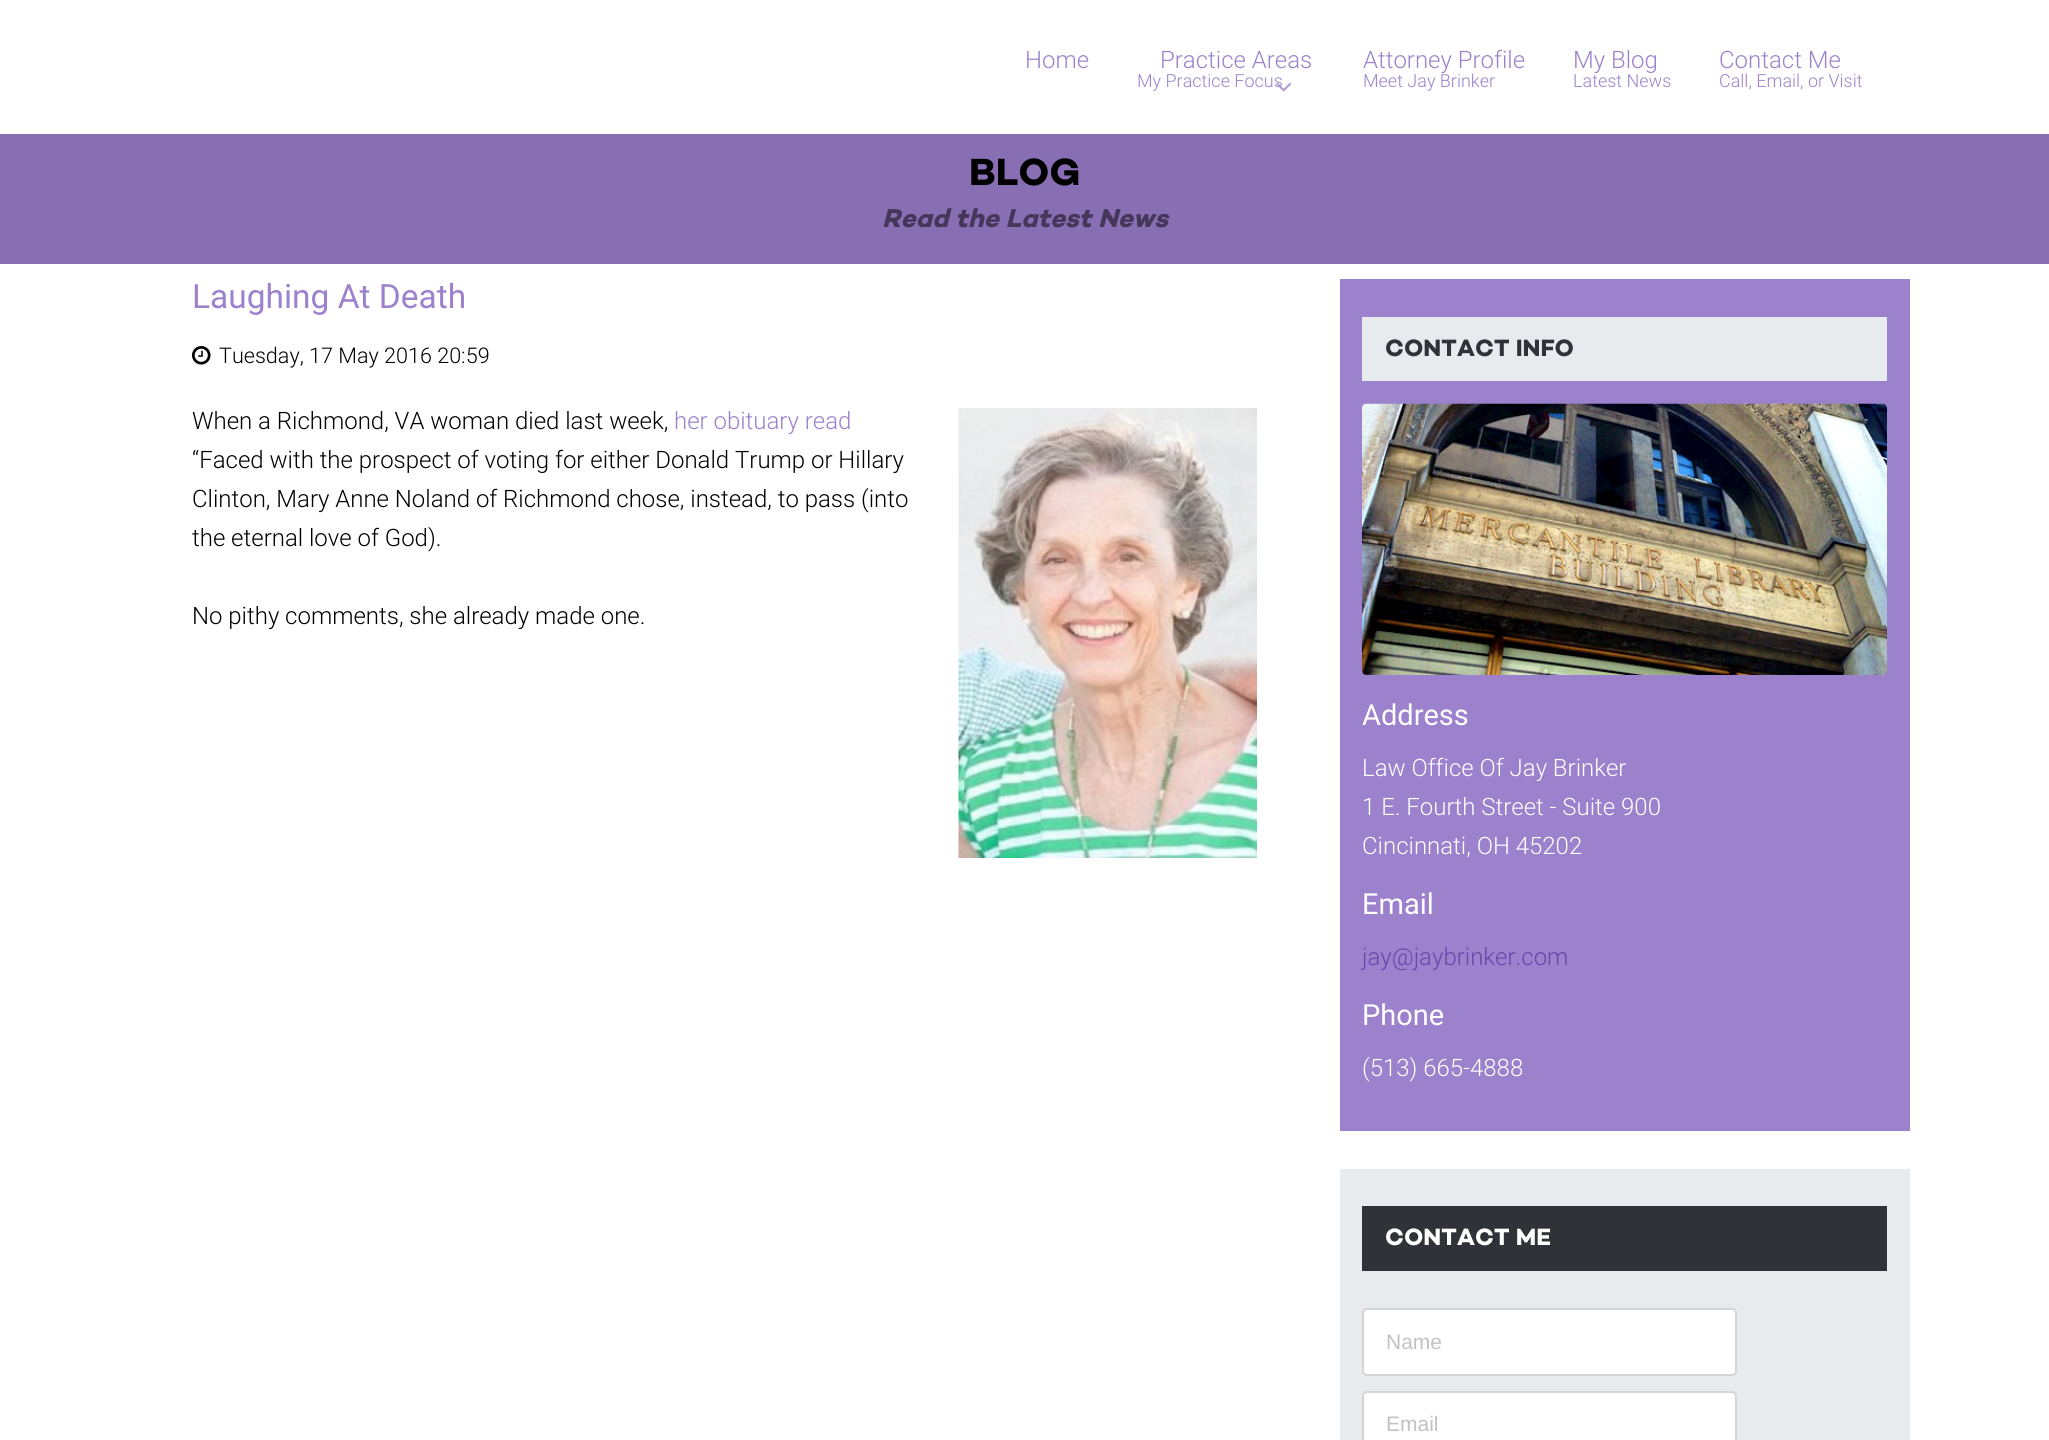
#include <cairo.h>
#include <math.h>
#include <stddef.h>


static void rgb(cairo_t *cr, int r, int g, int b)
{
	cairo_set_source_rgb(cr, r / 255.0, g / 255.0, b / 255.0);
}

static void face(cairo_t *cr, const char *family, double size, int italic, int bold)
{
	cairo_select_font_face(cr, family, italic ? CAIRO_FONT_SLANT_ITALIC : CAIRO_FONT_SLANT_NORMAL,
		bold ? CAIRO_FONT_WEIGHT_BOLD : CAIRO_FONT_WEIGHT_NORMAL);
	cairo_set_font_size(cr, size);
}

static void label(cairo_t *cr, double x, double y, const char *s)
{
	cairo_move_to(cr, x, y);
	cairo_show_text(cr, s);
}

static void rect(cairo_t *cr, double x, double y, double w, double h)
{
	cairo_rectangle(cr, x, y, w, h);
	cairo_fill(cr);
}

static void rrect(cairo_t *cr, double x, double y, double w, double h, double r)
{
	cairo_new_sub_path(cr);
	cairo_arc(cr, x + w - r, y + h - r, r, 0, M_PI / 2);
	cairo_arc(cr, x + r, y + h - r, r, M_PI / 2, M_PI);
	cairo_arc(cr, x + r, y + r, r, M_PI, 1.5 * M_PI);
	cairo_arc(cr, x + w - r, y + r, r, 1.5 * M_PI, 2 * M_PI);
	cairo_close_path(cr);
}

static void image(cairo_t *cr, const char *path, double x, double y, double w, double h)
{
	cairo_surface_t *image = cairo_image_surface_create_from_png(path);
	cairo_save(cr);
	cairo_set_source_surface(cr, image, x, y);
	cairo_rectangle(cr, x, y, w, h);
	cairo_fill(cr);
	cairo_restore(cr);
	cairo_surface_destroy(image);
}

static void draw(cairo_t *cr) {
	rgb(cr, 255, 255, 255);
	cairo_paint(cr);
	face(cr, "Roboto Light", 24, 0, 0);
	rgb(cr, 156, 129, 204);
	label(cr, 1025, 68, "Home");
	label(cr, 1160, 68, "Practice Areas");
	face(cr, "Roboto Light", 18, 0, 0);
	label(cr, 1137, 87, "My Practice Focus");
	image(cr, "image0.png", 1276, 82, 16, 10);
	face(cr, "Roboto Light", 24, 0, 0);
	label(cr, 1363, 68, "Attorney Profile");
	face(cr, "Roboto Light", 18, 0, 0);
	label(cr, 1363, 87, "Meet Jay Brinker");
	face(cr, "Roboto Light", 24, 0, 0);
	label(cr, 1573, 68, "My Blog");
	face(cr, "Roboto Light", 18, 0, 0);
	label(cr, 1573, 87, "Latest News");
	face(cr, "Roboto Light", 24, 0, 0);
	label(cr, 1719, 68, "Contact Me");
	face(cr, "Roboto Light", 18, 0, 0);
	label(cr, 1719, 87, "Call, Email, or Visit");
	rgb(cr, 136, 110, 179);
	rect(cr, 0, 134, 2049, 130);
	face(cr, "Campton", 38.5, 0, 1);
	rgb(cr, 0, 0, 0);
	label(cr, 969, 185, "BLOG");
	face(cr, "Campton", 26.4, 1, 1);
	rgb(cr, 68, 55, 90);
	label(cr, 882, 227, "Read the Latest News");
	face(cr, "Roboto", 33.5, 0, 0);
	rgb(cr, 156, 129, 204);
	label(cr, 192, 308, "Laughing At Death");
	image(cr, "image1.png", 192, 346, 19, 19);
	face(cr, "Roboto Light", 21.6, 0, 0);
	rgb(cr, 0, 0, 0);
	label(cr, 219, 363, "Tuesday, 17 May 2016 20:59");
	face(cr, "Roboto Light", 24, 0, 0);
	label(cr, 192, 429, "When a Richmond, VA woman died last week,");
	rgb(cr, 156, 129, 204);
	label(cr, 674, 429, "her obituary read");
	rgb(cr, 0, 0, 0);
	label(cr, 192, 468, "“Faced with the prospect of voting for either Donald Trump or Hillary");
	label(cr, 192, 507, "Clinton, Mary Anne Noland of Richmond chose, instead, to pass (into");
	label(cr, 192, 546, "the eternal love of God).");
	image(cr, "image2.png", 958, 408, 299, 450);
	label(cr, 192, 624, "No pithy comments, she already made one.");
	rgb(cr, 156, 129, 204);
	rect(cr, 1340, 279, 570, 852);
	rgb(cr, 232, 235, 237);
	rect(cr, 1362, 317, 525, 64);
	face(cr, "Campton", 24, 0, 1);
	rgb(cr, 47, 50, 55);
	label(cr, 1385, 356, "CONTACT INFO");
	image(cr, "image3.png", 1362, 403, 525, 272);
	face(cr, "Roboto", 29, 0, 0);
	rgb(cr, 255, 255, 255);
	label(cr, 1362, 725, "Address");
	face(cr, "Roboto Light", 24, 0, 0);
	label(cr, 1362, 776, "Law Office Of Jay Brinker");
	label(cr, 1362, 815, "1 E. Fourth Street - Suite 900");
	label(cr, 1362, 854, "Cincinnati, OH 45202");
	face(cr, "Roboto", 29, 0, 0);
	label(cr, 1362, 914, "Email");
	face(cr, "Roboto Light", 24, 0, 0);
	rgb(cr, 106, 69, 172);
	label(cr, 1362, 965, "jay@jaybrinker.com");
	face(cr, "Roboto", 29, 0, 0);
	rgb(cr, 255, 255, 255);
	label(cr, 1362, 1025, "Phone");
	face(cr, "Roboto Light", 24, 0, 0);
	label(cr, 1362, 1076, "(513) 665-4888");
	rgb(cr, 232, 235, 237);
	rect(cr, 1340, 1169, 570, 271);
	rgb(cr, 47, 50, 55);
	rect(cr, 1362, 1206, 525, 65);
	face(cr, "Campton", 24, 0, 1);
	rgb(cr, 255, 255, 255);
	label(cr, 1385, 1245, "CONTACT ME");
	rrect(cr, 1363, 1309, 373, 66, 4);
	cairo_fill_preserve(cr);
	rgb(cr, 213, 213, 213);
	cairo_stroke(cr);
	face(cr, "Liberation Sans", 21, 0, 0);
	rgb(cr, 194, 194, 194);
	label(cr, 1386, 1349, "Name");
	rgb(cr, 255, 255, 255);
	rrect(cr, 1363, 1392, 373, 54, 4);
	cairo_fill_preserve(cr);
	rgb(cr, 213, 213, 213);
	cairo_stroke(cr);
	rgb(cr, 194, 194, 194);
	label(cr, 1386, 1431, "Email");
}

int main(void) {
	cairo_surface_t *surface = cairo_image_surface_create(CAIRO_FORMAT_RGB24, 2049, 1440);
	cairo_t *cr = cairo_create(surface);
	cairo_font_options_t *options = cairo_font_options_create();
	cairo_font_options_set_hint_metrics(options, CAIRO_HINT_METRICS_OFF);
	cairo_font_options_set_hint_style(options, CAIRO_HINT_STYLE_NONE);
	cairo_set_font_options(cr, options);
	cairo_set_miter_limit(cr, 4);
	draw(cr);
	cairo_surface_write_to_png(surface, "render.png");
	cairo_font_options_destroy(options);
	cairo_destroy(cr);
	cairo_surface_destroy(surface);
	return 0;
}
